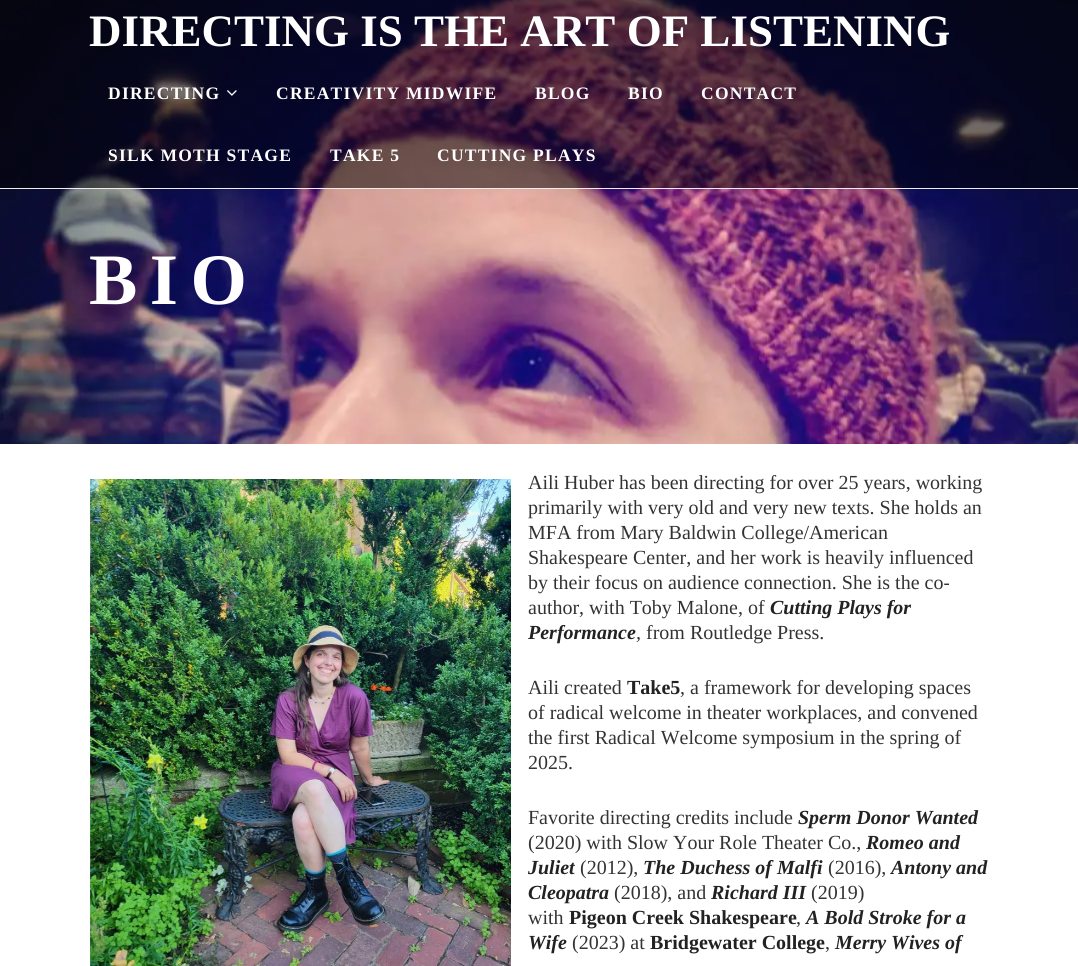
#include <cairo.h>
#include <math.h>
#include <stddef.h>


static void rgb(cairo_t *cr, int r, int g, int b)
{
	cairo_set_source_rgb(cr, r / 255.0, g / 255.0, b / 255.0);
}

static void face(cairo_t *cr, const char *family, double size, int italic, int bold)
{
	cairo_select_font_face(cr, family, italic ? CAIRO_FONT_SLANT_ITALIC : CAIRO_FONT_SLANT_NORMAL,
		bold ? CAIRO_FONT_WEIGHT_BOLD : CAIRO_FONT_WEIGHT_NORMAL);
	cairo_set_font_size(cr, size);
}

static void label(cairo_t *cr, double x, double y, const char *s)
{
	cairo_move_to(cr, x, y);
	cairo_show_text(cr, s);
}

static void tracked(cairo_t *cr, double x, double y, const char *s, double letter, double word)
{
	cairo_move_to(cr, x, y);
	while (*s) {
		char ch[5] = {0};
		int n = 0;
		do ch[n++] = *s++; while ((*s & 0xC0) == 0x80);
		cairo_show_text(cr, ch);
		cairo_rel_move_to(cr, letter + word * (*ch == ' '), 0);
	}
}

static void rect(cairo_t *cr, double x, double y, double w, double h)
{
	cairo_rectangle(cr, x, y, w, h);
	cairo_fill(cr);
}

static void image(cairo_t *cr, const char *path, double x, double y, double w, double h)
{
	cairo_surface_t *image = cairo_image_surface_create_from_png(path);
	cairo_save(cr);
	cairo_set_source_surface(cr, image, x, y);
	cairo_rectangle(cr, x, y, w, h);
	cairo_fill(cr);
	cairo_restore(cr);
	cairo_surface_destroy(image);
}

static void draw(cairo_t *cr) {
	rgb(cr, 255, 255, 255);
	cairo_paint(cr);
	image(cr, "image1.png", 0, 0, 1078, 444);
	cairo_set_source_rgba(cr, 0, 0, 0, 0.5);
	rect(cr, 0, 0, 1078, 188);
	rgb(cr, 238, 238, 238);
	rect(cr, 0, 188, 1078, 1);
	face(cr, "Liberation Serif", 45, 0, 1);
	rgb(cr, 255, 255, 255);
	label(cr, 89, 46, "DIRECTING IS THE ART OF LISTENING");
	face(cr, "Liberation Serif", 17.5, 0, 1);
	tracked(cr, 108, 99, "DIRECTING", 1.25, 0);
	image(cr, "image0.png", 227, 90, 10, 6);
	tracked(cr, 276, 99, "CREATIVITY MIDWIFE", 1.25, 0);
	tracked(cr, 535, 99, "BLOG", 1.25, 0);
	tracked(cr, 628, 99, "BIO", 1.25, 0);
	tracked(cr, 701, 99, "CONTACT", 1.25, 0);
	tracked(cr, 108, 161, "SILK MOTH STAGE", 1.25, 0);
	tracked(cr, 330, 161, "TAKE 5", 1.25, 0);
	tracked(cr, 437, 161, "CUTTING PLAYS", 1.25, 0);
	face(cr, "Liberation Serif", 72.5, 0, 1);
	tracked(cr, 89, 304, "BIO", 12.5, 0);
	image(cr, "image2.png", 90, 479, 421, 487);
	face(cr, "Liberation Serif", 20, 0, 0);
	rgb(cr, 51, 51, 51);
	label(cr, 528, 489, "Aili Huber has been directing for over 25 years, working");
	label(cr, 528, 514, "primarily with very old and very new texts. She holds an");
	label(cr, 528, 539, "MFA from Mary Baldwin College/American");
	label(cr, 528, 564, "Shakespeare Center, and her work is heavily influenced");
	label(cr, 528, 589, "by their focus on audience connection. She is the co-");
	label(cr, 528, 614, "author, with Toby Malone, of");
	face(cr, "Liberation Serif", 20, 1, 1);
	rgb(cr, 34, 34, 34);
	label(cr, 770, 614, "Cutting Plays for");
	label(cr, 528, 639, "Performance");
	face(cr, "Liberation Serif", 20, 1, 0);
	rgb(cr, 51, 51, 51);
	label(cr, 636, 639, ",");
	face(cr, "Liberation Serif", 20, 0, 0);
	label(cr, 646, 639, "from Routledge Press.");
	label(cr, 528, 694, "Aili created");
	face(cr, "Liberation Serif", 20, 0, 1);
	rgb(cr, 34, 34, 34);
	label(cr, 627, 694, "Take5");
	face(cr, "Liberation Serif", 20, 0, 0);
	rgb(cr, 51, 51, 51);
	label(cr, 680, 694, ", a framework for developing spaces");
	label(cr, 528, 719, "of radical welcome in theater workplaces, and convened");
	label(cr, 528, 744, "the first Radical Welcome symposium in the spring of");
	label(cr, 528, 769, "2025.");
	label(cr, 528, 824, "Favorite directing credits include");
	face(cr, "Liberation Serif", 20, 1, 1);
	rgb(cr, 34, 34, 34);
	label(cr, 798, 824, "Sperm Donor Wanted");
	face(cr, "Liberation Serif", 20, 0, 0);
	rgb(cr, 51, 51, 51);
	label(cr, 528, 849, "(2020) with Slow Your Role Theater Co.,");
	face(cr, "Liberation Serif", 20, 1, 1);
	rgb(cr, 34, 34, 34);
	label(cr, 866, 849, "Romeo and");
	label(cr, 528, 874, "Juliet");
	face(cr, "Liberation Serif", 20, 0, 0);
	rgb(cr, 51, 51, 51);
	label(cr, 580, 874, "(2012),");
	face(cr, "Liberation Serif", 20, 1, 1);
	rgb(cr, 34, 34, 34);
	label(cr, 643, 874, "The Duchess of Malfi");
	face(cr, "Liberation Serif", 20, 0, 0);
	rgb(cr, 51, 51, 51);
	label(cr, 828, 874, "(2016),");
	face(cr, "Liberation Serif", 20, 1, 1);
	rgb(cr, 34, 34, 34);
	label(cr, 891, 874, "Antony and");
	label(cr, 528, 899, "Cleopatra");
	face(cr, "Liberation Serif", 20, 0, 0);
	rgb(cr, 51, 51, 51);
	label(cr, 614, 899, "(2018), and");
	face(cr, "Liberation Serif", 20, 1, 1);
	rgb(cr, 34, 34, 34);
	label(cr, 711, 899, "Richard III");
	face(cr, "Liberation Serif", 20, 0, 0);
	rgb(cr, 51, 51, 51);
	label(cr, 811, 899, "(2019)");
	label(cr, 528, 924, "with");
	face(cr, "Liberation Serif", 20, 0, 1);
	rgb(cr, 34, 34, 34);
	label(cr, 569, 924, "Pigeon Creek Shakespeare");
	face(cr, "Liberation Serif", 20, 0, 0);
	rgb(cr, 51, 51, 51);
	label(cr, 796, 924, ",");
	face(cr, "Liberation Serif", 20, 1, 1);
	rgb(cr, 34, 34, 34);
	label(cr, 806, 924, "A Bold Stroke for a");
	label(cr, 528, 949, "Wife");
	face(cr, "Liberation Serif", 20, 0, 0);
	rgb(cr, 51, 51, 51);
	label(cr, 572, 949, "(2023) at");
	face(cr, "Liberation Serif", 20, 0, 1);
	rgb(cr, 34, 34, 34);
	label(cr, 650, 949, "Bridgewater College");
	face(cr, "Liberation Serif", 20, 0, 0);
	rgb(cr, 51, 51, 51);
	label(cr, 825, 949, ",");
	face(cr, "Liberation Serif", 20, 1, 1);
	rgb(cr, 34, 34, 34);
	label(cr, 835, 949, "Merry Wives of");
}

int main(void) {
	cairo_surface_t *surface = cairo_image_surface_create(CAIRO_FORMAT_RGB24, 1078, 966);
	cairo_t *cr = cairo_create(surface);
	cairo_font_options_t *options = cairo_font_options_create();
	cairo_font_options_set_hint_metrics(options, CAIRO_HINT_METRICS_OFF);
	cairo_font_options_set_hint_style(options, CAIRO_HINT_STYLE_NONE);
	cairo_set_font_options(cr, options);
	cairo_set_miter_limit(cr, 4);
	draw(cr);
	cairo_surface_write_to_png(surface, "render.png");
	cairo_font_options_destroy(options);
	cairo_destroy(cr);
	cairo_surface_destroy(surface);
	return 0;
}
